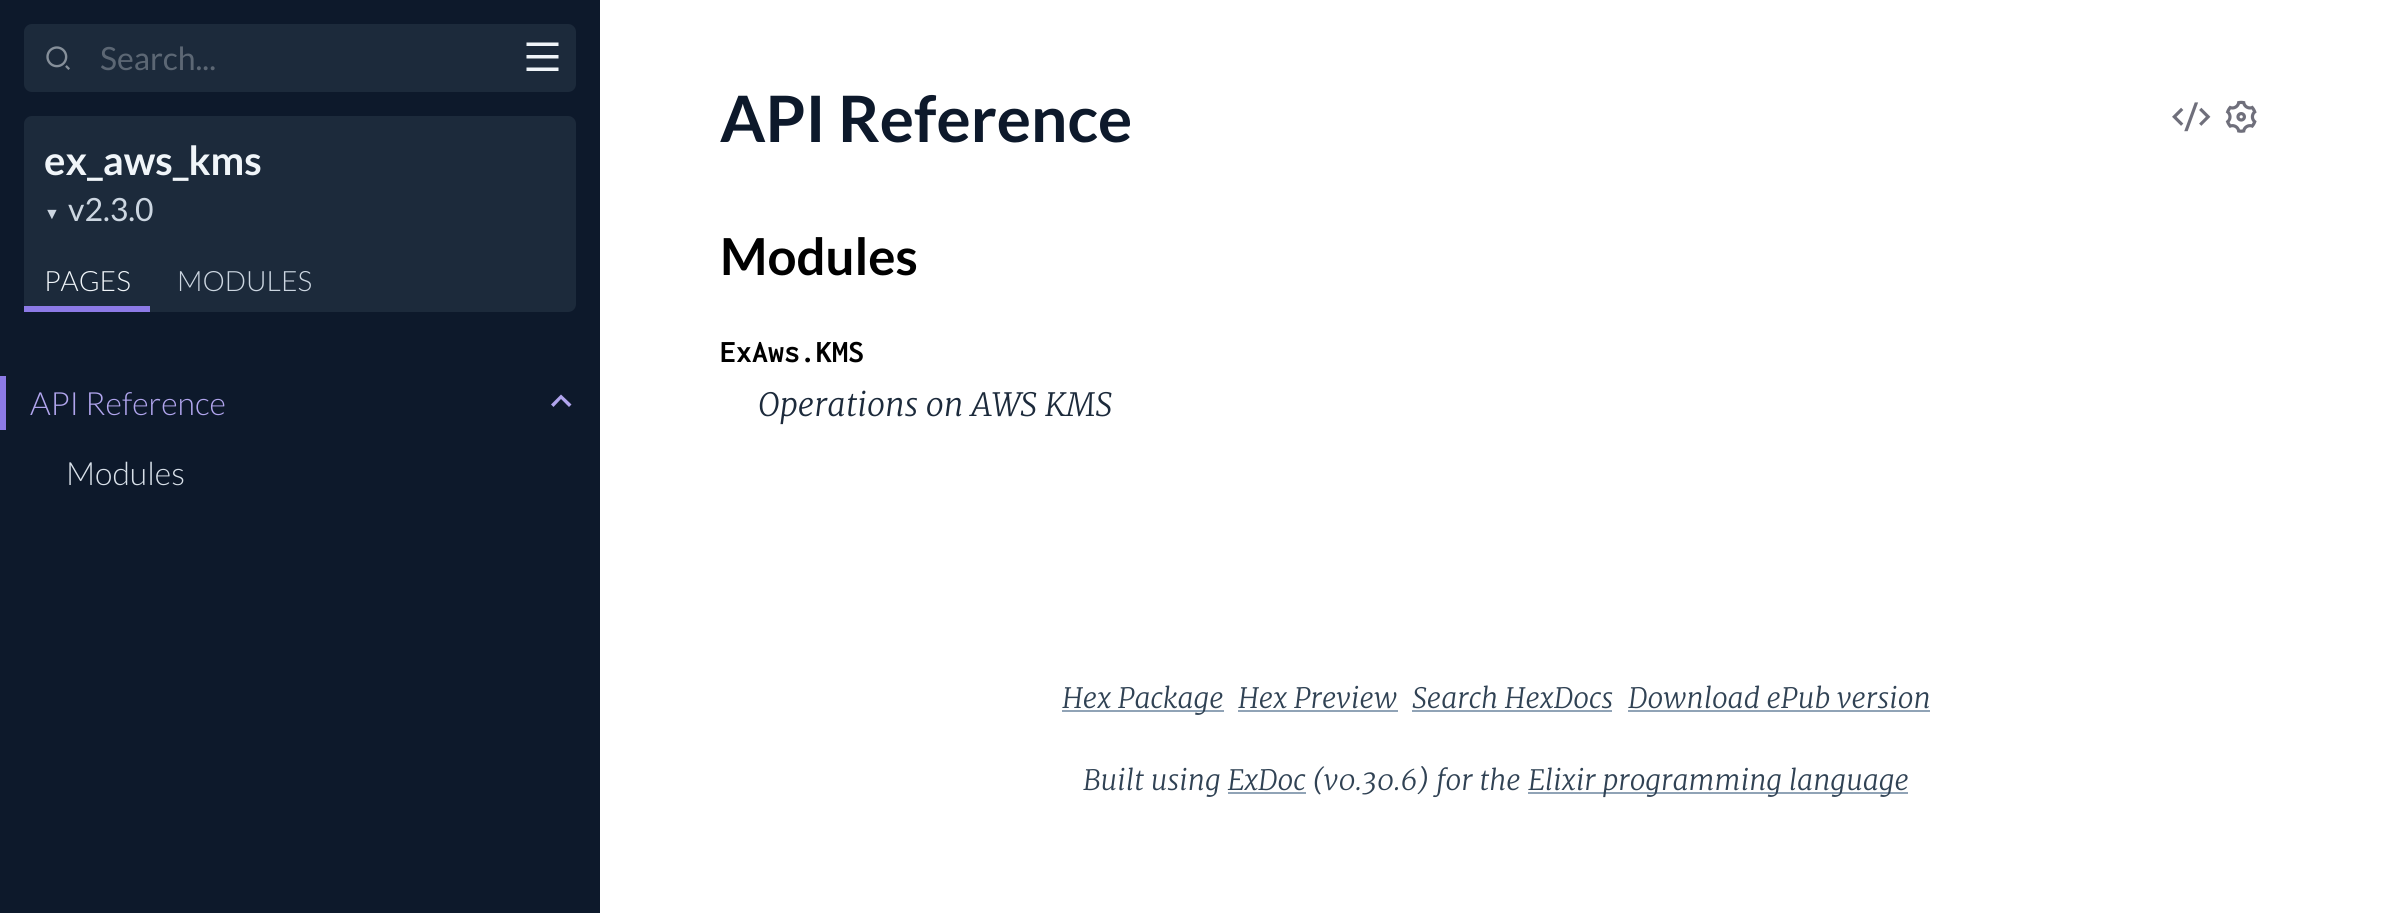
#include <cairo.h>
#include <math.h>
#include <stddef.h>


static void rgb(cairo_t *cr, int r, int g, int b)
{
	cairo_set_source_rgb(cr, r / 255.0, g / 255.0, b / 255.0);
}

static void face(cairo_t *cr, const char *family, double size, int italic, int bold)
{
	cairo_select_font_face(cr, family, italic ? CAIRO_FONT_SLANT_ITALIC : CAIRO_FONT_SLANT_NORMAL,
		bold ? CAIRO_FONT_WEIGHT_BOLD : CAIRO_FONT_WEIGHT_NORMAL);
	cairo_set_font_size(cr, size);
}

static void label(cairo_t *cr, double x, double y, const char *s)
{
	cairo_move_to(cr, x, y);
	cairo_show_text(cr, s);
}

static void rect(cairo_t *cr, double x, double y, double w, double h)
{
	cairo_rectangle(cr, x, y, w, h);
	cairo_fill(cr);
}

static void rrect(cairo_t *cr, double x, double y, double w, double h, double r)
{
	cairo_new_sub_path(cr);
	cairo_arc(cr, x + w - r, y + h - r, r, 0, M_PI / 2);
	cairo_arc(cr, x + r, y + h - r, r, M_PI / 2, M_PI);
	cairo_arc(cr, x + r, y + r, r, M_PI, 1.5 * M_PI);
	cairo_arc(cr, x + w - r, y + r, r, 1.5 * M_PI, 2 * M_PI);
	cairo_close_path(cr);
}

static void image(cairo_t *cr, const char *path, double x, double y, double w, double h)
{
	cairo_surface_t *image = cairo_image_surface_create_from_png(path);
	cairo_save(cr);
	cairo_set_source_surface(cr, image, x, y);
	cairo_rectangle(cr, x, y, w, h);
	cairo_fill(cr);
	cairo_restore(cr);
	cairo_surface_destroy(image);
}

static void draw(cairo_t *cr) {
	rgb(cr, 255, 255, 255);
	cairo_paint(cr);
	rgb(cr, 13, 25, 43);
	rect(cr, 0, 0, 600, 913);
	rgb(cr, 28, 42, 59);
	rrect(cr, 24, 24, 552, 68, 8);
	cairo_fill(cr);
	image(cr, "image0.png", 46, 46, 24, 24);
	face(cr, "Lato", 32, 0, 0);
	rgb(cr, 92, 103, 116);
	label(cr, 100, 70, "Search...");
	rgb(cr, 28, 42, 59);
	rrect(cr, 24, 116, 552, 196, 8);
	cairo_fill(cr);
	face(cr, "Lato", 40, 0, 1);
	rgb(cr, 240, 245, 249);
	label(cr, 44, 175, "ex_aws_kms");
	face(cr, "Liberation Sans", 16, 0, 0);
	rgb(cr, 204, 214, 225);
	label(cr, 44, 219, "▼");
	face(cr, "Lato", 32, 0, 0);
	label(cr, 68, 221, "v2.3.0");
	rgb(cr, 140, 122, 230);
	rect(cr, 24, 306, 126, 6);
	face(cr, "Lato Light", 28, 0, 0);
	rgb(cr, 240, 245, 249);
	label(cr, 44, 291, "PAGES");
	rgb(cr, 204, 214, 225);
	label(cr, 177, 291, "MODULES");
	rgb(cr, 140, 122, 230);
	rect(cr, 0, 376, 6, 54);
	face(cr, "Lato Light", 32, 0, 0);
	rgb(cr, 177, 165, 238);
	label(cr, 30, 415, "API Reference");
	cairo_new_path(cr);
	cairo_move_to(cr, 561, 399);
	cairo_line_to(cr, 553.5, 407);
	cairo_line_to(cr, 551, 404.5);
	cairo_line_to(cr, 561, 394.5);
	cairo_line_to(cr, 571.5, 404.5);
	cairo_line_to(cr, 569, 407);
	cairo_close_path(cr);
	cairo_fill(cr);
	rgb(cr, 216, 224, 233);
	label(cr, 66, 485, "Modules");
	rgb(cr, 240, 245, 249);
	cairo_new_path(cr);
	cairo_move_to(cr, 526.5, 42.5);
	cairo_line_to(cr, 558.5, 42.5);
	cairo_line_to(cr, 558.5, 46);
	cairo_line_to(cr, 526.5, 46);
	cairo_close_path(cr);
	cairo_move_to(cr, 526.5, 55);
	cairo_line_to(cr, 558.5, 55);
	cairo_line_to(cr, 558.5, 58.5);
	cairo_line_to(cr, 526.5, 58.5);
	cairo_close_path(cr);
	cairo_move_to(cr, 526.5, 67.5);
	cairo_line_to(cr, 558.5, 67.5);
	cairo_line_to(cr, 558.5, 71);
	cairo_line_to(cr, 526.5, 71);
	cairo_close_path(cr);
	cairo_fill(cr);
	face(cr, "Lato", 64, 0, 1);
	rgb(cr, 13, 25, 43);
	label(cr, 720, 142, "API Reference");
	image(cr, "image1.png", 2172, 102, 39, 30);
	image(cr, "image2.png", 2225, 100, 32, 33);
	face(cr, "Lato", 51, 0, 1);
	rgb(cr, 0, 0, 0);
	label(cr, 720, 275, "Modules");
	face(cr, "Inconsolata", 32, 0, 1);
	label(cr, 720, 362, "ExAws.KMS");
	face(cr, "Merriweather Light", 32, 1, 0);
	rgb(cr, 28, 42, 59);
	label(cr, 758, 416, "Operations on AWS KMS");
	rgb(cr, 144, 163, 182);
	rect(cr, 1062, 710, 162, 2);
	face(cr, "Merriweather Light", 28, 1, 0);
	rgb(cr, 48, 66, 84);
	label(cr, 1062, 708, "Hex Package");
	label(cr, 1238, 708, "Hex Preview");
	rgb(cr, 144, 163, 182);
	rect(cr, 1238, 710, 160, 2);
	rgb(cr, 48, 66, 84);
	label(cr, 1412, 708, "Search HexDocs");
	rgb(cr, 144, 163, 182);
	rect(cr, 1412, 710, 200, 2);
	rgb(cr, 48, 66, 84);
	label(cr, 1628, 708, "Download ePub version");
	rgb(cr, 144, 163, 182);
	rect(cr, 1628, 710, 302, 2);
	rgb(cr, 48, 66, 84);
	label(cr, 1083, 790, "Built using ExDoc (v0.30.6) for the");
	rgb(cr, 144, 163, 182);
	rect(cr, 1528, 792, 380, 2);
	rgb(cr, 48, 66, 84);
	label(cr, 1528, 790, "Elixir programming language");
	rgb(cr, 144, 163, 182);
	rect(cr, 1228, 792, 78, 2);
}

int main(void) {
	cairo_surface_t *surface = cairo_image_surface_create(CAIRO_FORMAT_RGB24, 2391, 913);
	cairo_t *cr = cairo_create(surface);
	cairo_font_options_t *options = cairo_font_options_create();
	cairo_font_options_set_hint_metrics(options, CAIRO_HINT_METRICS_OFF);
	cairo_font_options_set_hint_style(options, CAIRO_HINT_STYLE_NONE);
	cairo_set_font_options(cr, options);
	cairo_set_miter_limit(cr, 4);
	draw(cr);
	cairo_surface_write_to_png(surface, "render.png");
	cairo_font_options_destroy(options);
	cairo_destroy(cr);
	cairo_surface_destroy(surface);
	return 0;
}
